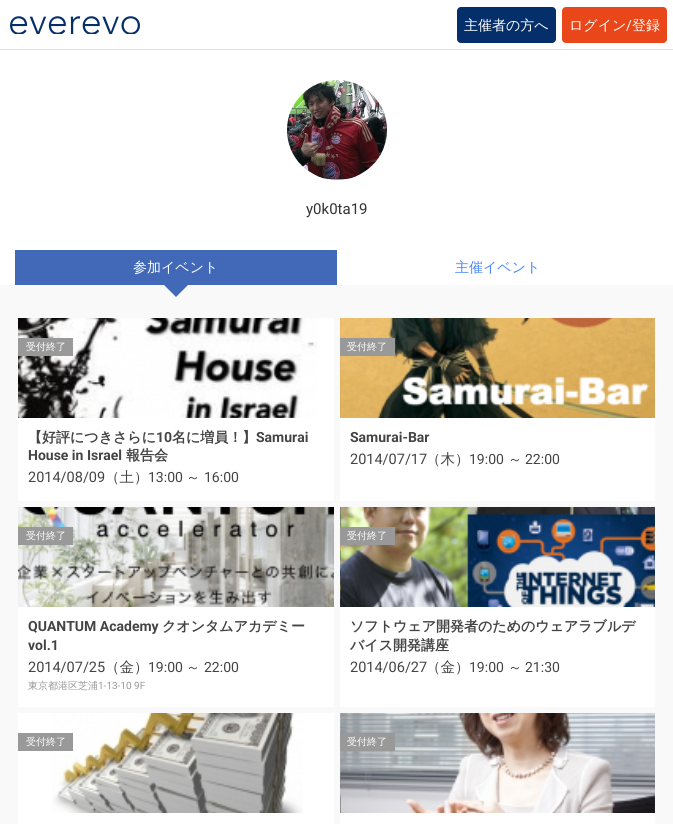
#include <cairo.h>
#include <math.h>
#include <stddef.h>


static void rgb(cairo_t *cr, int r, int g, int b)
{
	cairo_set_source_rgb(cr, r / 255.0, g / 255.0, b / 255.0);
}

static void face(cairo_t *cr, const char *family, double size, int italic, int bold)
{
	cairo_select_font_face(cr, family, italic ? CAIRO_FONT_SLANT_ITALIC : CAIRO_FONT_SLANT_NORMAL,
		bold ? CAIRO_FONT_WEIGHT_BOLD : CAIRO_FONT_WEIGHT_NORMAL);
	cairo_set_font_size(cr, size);
}

static void label(cairo_t *cr, double x, double y, const char *s)
{
	cairo_move_to(cr, x, y);
	cairo_show_text(cr, s);
}

static void rect(cairo_t *cr, double x, double y, double w, double h)
{
	cairo_rectangle(cr, x, y, w, h);
	cairo_fill(cr);
}

static void rrect(cairo_t *cr, double x, double y, double w, double h, double r)
{
	cairo_new_sub_path(cr);
	cairo_arc(cr, x + w - r, y + h - r, r, 0, M_PI / 2);
	cairo_arc(cr, x + r, y + h - r, r, M_PI / 2, M_PI);
	cairo_arc(cr, x + r, y + r, r, M_PI, 1.5 * M_PI);
	cairo_arc(cr, x + w - r, y + r, r, 1.5 * M_PI, 2 * M_PI);
	cairo_close_path(cr);
}

static void image(cairo_t *cr, const char *path, double x, double y, double w, double h)
{
	cairo_surface_t *image = cairo_image_surface_create_from_png(path);
	cairo_save(cr);
	cairo_set_source_surface(cr, image, x, y);
	cairo_rectangle(cr, x, y, w, h);
	cairo_fill(cr);
	cairo_restore(cr);
	cairo_surface_destroy(image);
}

static void draw(cairo_t *cr) {
	rgb(cr, 255, 255, 255);
	cairo_paint(cr);
	rgb(cr, 225, 225, 225);
	rect(cr, 0, 49, 673, 1);
	image(cr, "image0.png", 10, 16, 130, 18);
	rgb(cr, 5, 47, 107);
	rrect(cr, 457, 7, 99, 36, 4);
	cairo_fill(cr);
	face(cr, "WenQuanYi Zen Hei Medium", 14, 0, 0);
	rgb(cr, 255, 255, 255);
	label(cr, 464, 30, "主催者の方へ");
	rgb(cr, 233, 70, 25);
	rrect(cr, 562, 7, 105, 36, 4);
	cairo_fill(cr);
	rgb(cr, 255, 255, 255);
	label(cr, 569, 30, "ログイン");
	face(cr, "Roboto", 14, 0, 0);
	label(cr, 626, 30, "/");
	face(cr, "WenQuanYi Zen Hei Medium", 14, 0, 0);
	label(cr, 632, 30, "登録");
	image(cr, "image1.png", 287, 80, 100, 100);
	face(cr, "Roboto", 15, 0, 0);
	rgb(cr, 51, 51, 51);
	label(cr, 306, 214, "y0k0ta19");
	rgb(cr, 249, 249, 249);
	rect(cr, 0, 285, 673, 539);
	rgb(cr, 65, 105, 184);
	rect(cr, 15, 250, 322, 35);
	face(cr, "WenQuanYi Zen Hei Medium", 14, 0, 0);
	rgb(cr, 255, 255, 255);
	label(cr, 133, 272, "参加イベント");
	rgb(cr, 65, 105, 184);
	cairo_new_path(cr);
	cairo_move_to(cr, 164, 285);
	cairo_line_to(cr, 188, 285);
	cairo_line_to(cr, 176, 297);
	cairo_close_path(cr);
	cairo_fill(cr);
	rgb(cr, 70, 134, 255);
	label(cr, 455, 272, "主催イベント");
	rgb(cr, 255, 255, 255);
	rect(cr, 18, 318, 316, 183);
	image(cr, "image2.png", 18, 318, 299, 100);
	rgb(cr, 153, 153, 153);
	rect(cr, 18, 338, 55, 18);
	face(cr, "WenQuanYi Zen Hei Medium", 10, 0, 0);
	rgb(cr, 255, 255, 255);
	label(cr, 26, 350, "受付終了");
	face(cr, "WenQuanYi Zen Hei", 14, 0, 1);
	rgb(cr, 68, 68, 68);
	label(cr, 28, 442, "【好評につきさらに");
	face(cr, "Roboto", 14, 0, 1);
	label(cr, 156, 442, "10");
	face(cr, "WenQuanYi Zen Hei", 14, 0, 1);
	label(cr, 172, 442, "名に増員！】");
	face(cr, "Roboto", 14, 0, 1);
	label(cr, 256, 442, "Samurai");
	label(cr, 28, 460, "House in Israel");
	face(cr, "WenQuanYi Zen Hei", 14, 0, 1);
	label(cr, 126, 460, "報告会");
	face(cr, "Roboto", 14.5, 0, 0);
	label(cr, 28, 482, "2014/08/09");
	face(cr, "WenQuanYi Zen Hei Medium", 14.5, 0, 0);
	label(cr, 105, 482, "（土）");
	face(cr, "Roboto", 14, 0, 0);
	label(cr, 148, 482, "13:00");
	face(cr, "WenQuanYi Zen Hei Medium", 14, 0, 0);
	label(cr, 186, 482, "～");
	face(cr, "Roboto", 14, 0, 0);
	label(cr, 204, 482, "16:00");
	rgb(cr, 255, 255, 255);
	rect(cr, 340, 418, 315, 83);
	image(cr, "image3.png", 340, 318, 315, 100);
	rgb(cr, 153, 153, 153);
	rect(cr, 340, 338, 55, 18);
	face(cr, "WenQuanYi Zen Hei Medium", 10, 0, 0);
	rgb(cr, 255, 255, 255);
	label(cr, 347, 350, "受付終了");
	face(cr, "Roboto", 14, 0, 1);
	rgb(cr, 68, 68, 68);
	label(cr, 350, 442, "Samurai-Bar");
	face(cr, "Roboto", 14.5, 0, 0);
	label(cr, 350, 464, "2014/07/17");
	face(cr, "WenQuanYi Zen Hei Medium", 14.5, 0, 0);
	label(cr, 426, 464, "（木）");
	face(cr, "Roboto", 14, 0, 0);
	label(cr, 469, 464, "19:00");
	face(cr, "WenQuanYi Zen Hei Medium", 14, 0, 0);
	label(cr, 508, 464, "～");
	face(cr, "Roboto", 14, 0, 0);
	label(cr, 525, 464, "22:00");
	rgb(cr, 255, 255, 255);
	rect(cr, 18, 607, 316, 100);
	image(cr, "image4.png", 18, 507, 316, 100);
	rgb(cr, 153, 153, 153);
	rect(cr, 18, 527, 55, 18);
	face(cr, "WenQuanYi Zen Hei Medium", 10, 0, 0);
	rgb(cr, 255, 255, 255);
	label(cr, 26, 539, "受付終了");
	face(cr, "Roboto", 14, 0, 1);
	rgb(cr, 68, 68, 68);
	label(cr, 28, 631, "QUANTUM Academy");
	face(cr, "WenQuanYi Zen Hei", 14, 0, 1);
	label(cr, 162, 631, "クオンタムアカデミー");
	face(cr, "Roboto", 14, 0, 1);
	label(cr, 28, 650, "vol.1");
	face(cr, "Roboto", 14.5, 0, 0);
	label(cr, 28, 672, "2014/07/25");
	face(cr, "WenQuanYi Zen Hei Medium", 14.5, 0, 0);
	label(cr, 105, 672, "（金）");
	face(cr, "Roboto", 14, 0, 0);
	label(cr, 148, 672, "19:00");
	face(cr, "WenQuanYi Zen Hei Medium", 14, 0, 0);
	label(cr, 186, 672, "～");
	face(cr, "Roboto", 14, 0, 0);
	label(cr, 204, 672, "22:00");
	face(cr, "WenQuanYi Zen Hei Medium", 10, 0, 0);
	rgb(cr, 153, 153, 153);
	label(cr, 28, 689, "東京都港区芝浦");
	face(cr, "Roboto", 10, 0, 0);
	label(cr, 98, 689, "1-13-10 9F");
	rgb(cr, 255, 255, 255);
	rect(cr, 340, 607, 315, 100);
	image(cr, "image5.png", 340, 507, 315, 100);
	rgb(cr, 153, 153, 153);
	rect(cr, 340, 527, 55, 18);
	face(cr, "WenQuanYi Zen Hei Medium", 10, 0, 0);
	rgb(cr, 255, 255, 255);
	label(cr, 347, 539, "受付終了");
	face(cr, "WenQuanYi Zen Hei", 14, 0, 1);
	rgb(cr, 68, 68, 68);
	label(cr, 350, 631, "ソフトウェア開発者のためのウェアラブルデ");
	label(cr, 350, 650, "バイス開発講座");
	face(cr, "Roboto", 14.5, 0, 0);
	label(cr, 350, 672, "2014/06/27");
	face(cr, "WenQuanYi Zen Hei Medium", 14.5, 0, 0);
	label(cr, 426, 672, "（金）");
	face(cr, "Roboto", 14, 0, 0);
	label(cr, 469, 672, "19:00");
	face(cr, "WenQuanYi Zen Hei Medium", 14, 0, 0);
	label(cr, 508, 672, "～");
	face(cr, "Roboto", 14, 0, 0);
	label(cr, 525, 672, "21:30");
	rgb(cr, 255, 255, 255);
	rect(cr, 18, 713, 316, 111);
	image(cr, "image6.png", 52, 713, 251, 100);
	rgb(cr, 153, 153, 153);
	rect(cr, 18, 733, 55, 18);
	face(cr, "WenQuanYi Zen Hei Medium", 10, 0, 0);
	rgb(cr, 255, 255, 255);
	label(cr, 26, 745, "受付終了");
	rect(cr, 340, 813, 315, 11);
	image(cr, "image7.png", 340, 713, 315, 100);
	rgb(cr, 153, 153, 153);
	rect(cr, 340, 733, 55, 18);
	rgb(cr, 255, 255, 255);
	label(cr, 347, 745, "受付終了");
}

int main(void) {
	cairo_surface_t *surface = cairo_image_surface_create(CAIRO_FORMAT_RGB24, 673, 824);
	cairo_t *cr = cairo_create(surface);
	cairo_font_options_t *options = cairo_font_options_create();
	cairo_font_options_set_hint_metrics(options, CAIRO_HINT_METRICS_OFF);
	cairo_font_options_set_hint_style(options, CAIRO_HINT_STYLE_NONE);
	cairo_set_font_options(cr, options);
	cairo_set_miter_limit(cr, 4);
	draw(cr);
	cairo_surface_write_to_png(surface, "render.png");
	cairo_font_options_destroy(options);
	cairo_destroy(cr);
	cairo_surface_destroy(surface);
	return 0;
}
